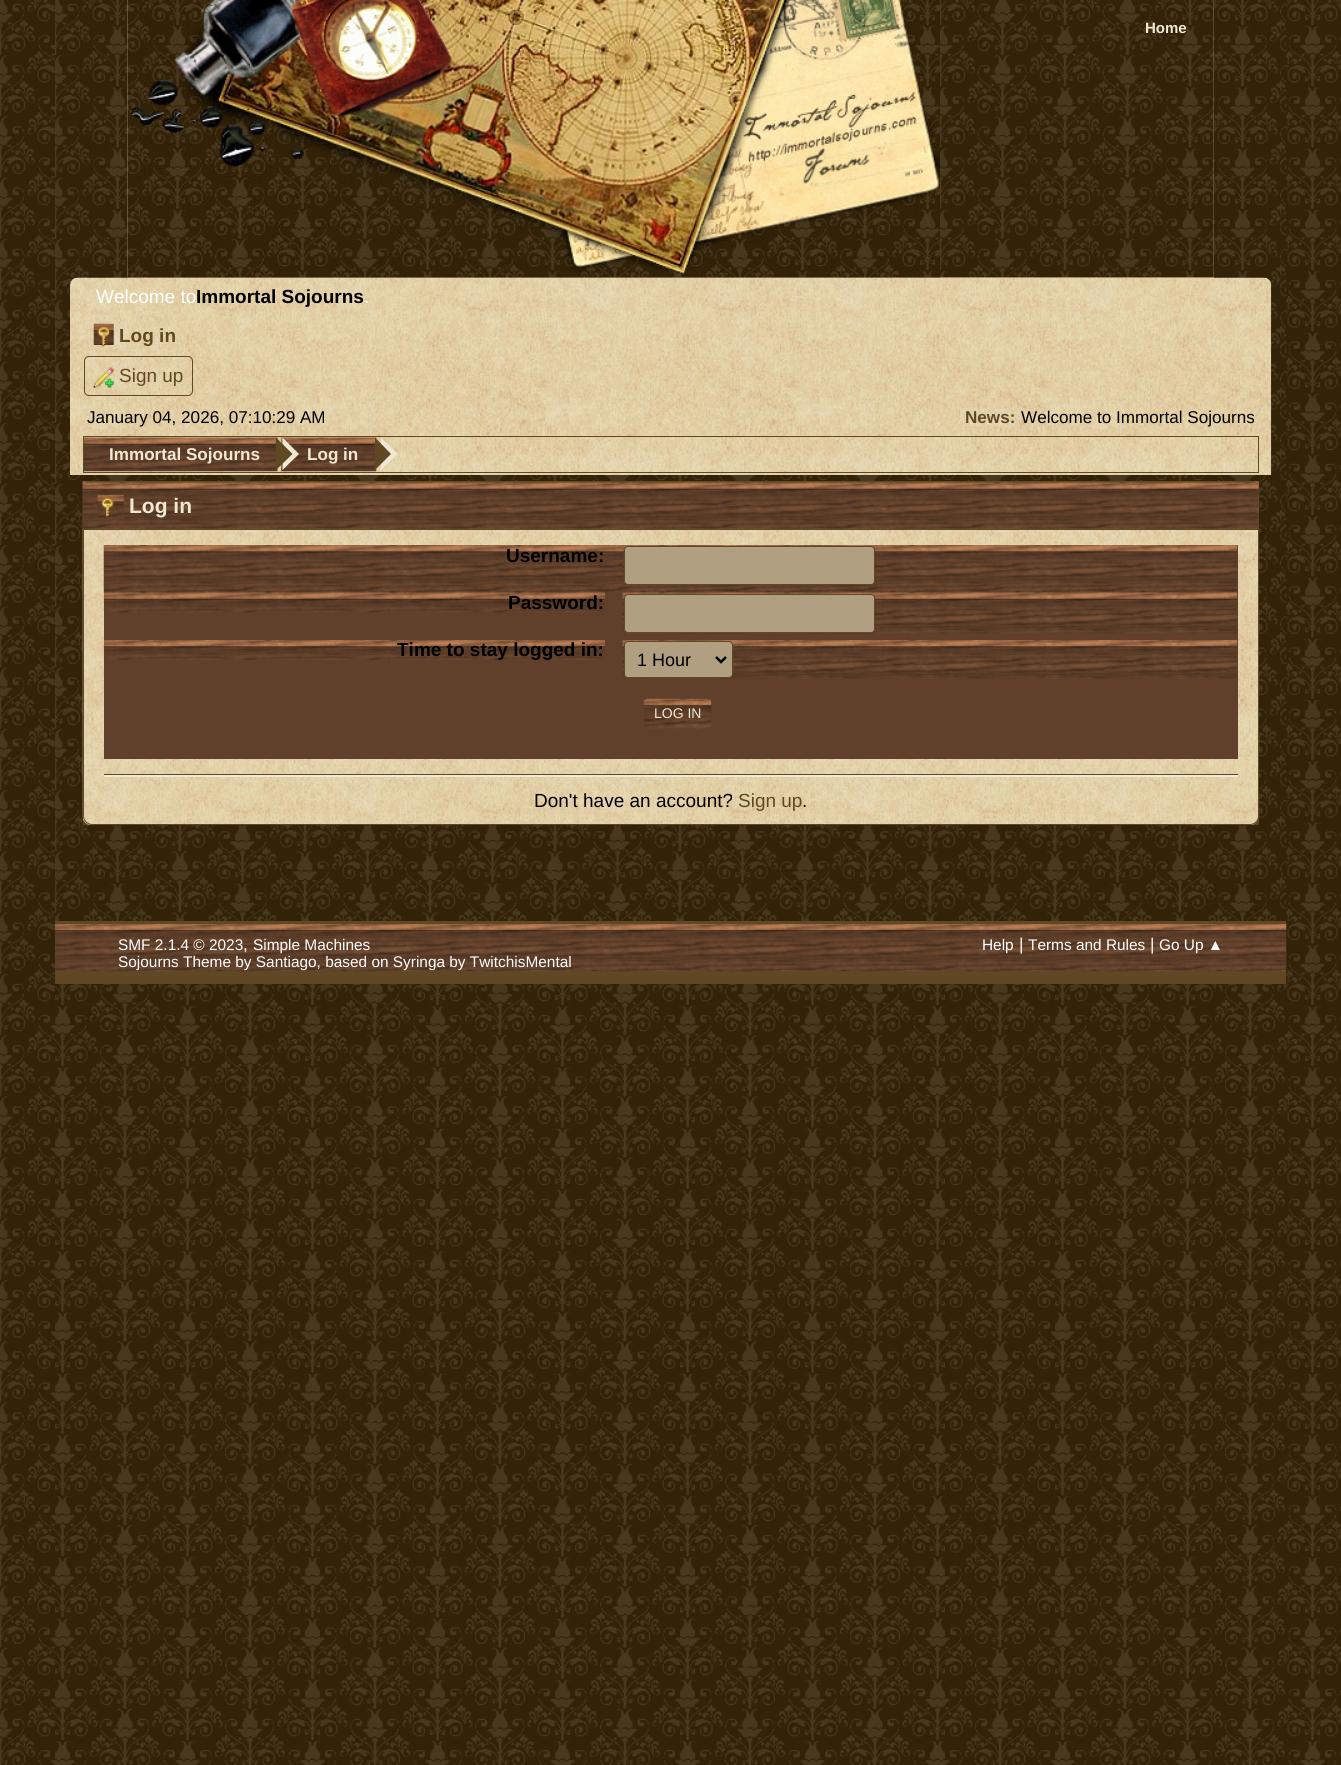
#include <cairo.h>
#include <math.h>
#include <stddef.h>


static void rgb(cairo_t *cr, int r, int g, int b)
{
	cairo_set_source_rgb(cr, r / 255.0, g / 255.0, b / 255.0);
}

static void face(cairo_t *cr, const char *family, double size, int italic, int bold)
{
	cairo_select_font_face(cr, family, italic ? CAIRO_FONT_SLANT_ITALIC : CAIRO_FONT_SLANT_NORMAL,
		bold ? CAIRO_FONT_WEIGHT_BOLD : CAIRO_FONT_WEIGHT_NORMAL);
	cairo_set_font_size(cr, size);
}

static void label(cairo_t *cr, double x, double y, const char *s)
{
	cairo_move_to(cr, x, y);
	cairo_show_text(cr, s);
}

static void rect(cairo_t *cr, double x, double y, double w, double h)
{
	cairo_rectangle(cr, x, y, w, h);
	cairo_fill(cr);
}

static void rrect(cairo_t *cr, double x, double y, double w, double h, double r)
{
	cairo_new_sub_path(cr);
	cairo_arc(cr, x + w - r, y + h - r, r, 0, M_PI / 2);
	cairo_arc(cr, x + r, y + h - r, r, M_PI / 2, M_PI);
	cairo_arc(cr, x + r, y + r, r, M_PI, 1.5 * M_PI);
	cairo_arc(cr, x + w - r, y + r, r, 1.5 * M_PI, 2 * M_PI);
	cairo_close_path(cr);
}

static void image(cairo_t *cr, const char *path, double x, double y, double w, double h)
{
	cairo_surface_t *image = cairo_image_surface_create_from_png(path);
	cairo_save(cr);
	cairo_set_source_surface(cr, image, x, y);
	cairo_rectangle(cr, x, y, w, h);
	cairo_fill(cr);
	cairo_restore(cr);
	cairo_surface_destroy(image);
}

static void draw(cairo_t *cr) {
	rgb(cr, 255, 255, 255);
	cairo_paint(cr);
	image(cr, "image0.png", 0, 984, 1341, 781);
	image(cr, "image1.png", 0, 0, 1341, 984);
	image(cr, "image2.png", 55, 0, 1232, 984);
	rgb(cr, 230, 184, 115);
	rect(cr, 128, 0, 1086, 278);
	image(cr, "image3.png", 127, 0, 1087, 278);
	image(cr, "image6.png", 70, 277, 1202, 198);
	image(cr, "image4.png", 127, 0, 813, 278);
	image(cr, "image5.png", 127, 0, 813, 278);
	face(cr, "Liberation Sans", 15, 0, 1);
	rgb(cr, 241, 232, 214);
	label(cr, 1145, 33, "Home");
	face(cr, "Liberation Sans", 19, 0, 0);
	rgb(cr, 255, 255, 255);
	label(cr, 96, 303, "Welcome to");
	face(cr, "Liberation Sans", 19, 0, 1);
	rgb(cr, 0, 0, 0);
	label(cr, 196, 303, "Immortal Sojourns");
	face(cr, "Liberation Sans", 19, 0, 0);
	rgb(cr, 255, 255, 255);
	label(cr, 364, 303, ".");
	image(cr, "image7.png", 84, 315, 101, 41);
	image(cr, "image8.png", 93, 323, 21, 22);
	image(cr, "image9.png", 97, 326, 14, 21);
	face(cr, "Liberation Sans", 19, 0, 1);
	rgb(cr, 95, 72, 35);
	label(cr, 119, 342, "Log in");
	image(cr, "image10.png", 84, 356, 109, 40);
	rrect(cr, 84.5, 356.5, 108, 39, 4.5);
	cairo_set_line_width(cr, 1);
	cairo_stroke(cr);
	image(cr, "image11.png", 93, 367, 21, 21);
	face(cr, "Liberation Sans", 19, 0, 0);
	label(cr, 119, 382, "Sign up");
	face(cr, "Liberation Sans", 17.1, 0, 0);
	rgb(cr, 0, 0, 0);
	label(cr, 87, 423, "January 04, 2026, 07:10:29 AM");
	image(cr, "image12.png", 960, 408, 55, 19);
	face(cr, "Liberation Sans", 17.1, 0, 1);
	rgb(cr, 95, 72, 35);
	label(cr, 965, 423, "News:");
	face(cr, "Liberation Sans", 17.1, 0, 0);
	rgb(cr, 0, 0, 0);
	label(cr, 1021, 423, "Welcome to Immortal Sojourns");
	cairo_rectangle(cr, 83.5, 436.5, 1175, 36);
	rgb(cr, 95, 72, 35);
	cairo_stroke(cr);
	image(cr, "image13.png", 83, 437, 195, 35);
	image(cr, "image14.png", 281, 437, 96, 35);
	rgb(cr, 241, 232, 214);
	cairo_new_path(cr);
	cairo_move_to(cr, 282.5, 470);
	cairo_line_to(cr, 282.5, 437.5);
	cairo_line_to(cr, 299, 454);
	cairo_close_path(cr);
	cairo_fill(cr);
	rgb(cr, 95, 72, 35);
	cairo_new_path(cr);
	cairo_move_to(cr, 276, 470);
	cairo_line_to(cr, 276, 437.5);
	cairo_line_to(cr, 292.5, 454);
	cairo_close_path(cr);
	cairo_fill(cr);
	face(cr, "Liberation Sans", 17.1, 0, 1);
	rgb(cr, 241, 232, 214);
	label(cr, 109, 460, "Immortal Sojourns");
	cairo_new_path(cr);
	cairo_move_to(cr, 381, 470);
	cairo_line_to(cr, 381, 437.5);
	cairo_line_to(cr, 397.5, 454);
	cairo_close_path(cr);
	cairo_fill(cr);
	rgb(cr, 95, 72, 35);
	cairo_new_path(cr);
	cairo_move_to(cr, 375, 470);
	cairo_line_to(cr, 375, 437.5);
	cairo_line_to(cr, 391, 454);
	cairo_close_path(cr);
	cairo_fill(cr);
	rgb(cr, 241, 232, 214);
	label(cr, 307, 460, "Log in");
	rgb(cr, 97, 64, 43);
	rect(cr, 83, 481, 1176, 344);
	image(cr, "image15.png", 82, 481, 1177, 48);
	rgb(cr, 95, 72, 35);
	cairo_new_path(cr);
	cairo_move_to(cr, 91, 481);
	cairo_line_to(cr, 1251, 481);
	cairo_curve_to(cr, 1255.5, 481, 1259, 484.5, 1259, 489);
	cairo_line_to(cr, 1259, 530);
	cairo_line_to(cr, 83, 530);
	cairo_line_to(cr, 83, 489);
	cairo_curve_to(cr, 83, 484.5, 86.5, 481, 91, 481);
	cairo_close_path(cr);
	cairo_fill(cr);
	image(cr, "image16.png", 82, 482, 1177, 48);
	rect(cr, 86, 481, 1169, 1);
	rgb(cr, 97, 64, 43);
	rect(cr, 98, 495, 26, 24);
	image(cr, "image17.png", 97, 495, 27, 24);
	image(cr, "image18.png", 101, 497, 13, 21);
	face(cr, "Liberation Sans", 21, 0, 1);
	rgb(cr, 241, 232, 214);
	label(cr, 129, 513, "Log in");
	image(cr, "image19.png", 82, 528, 1177, 297);
	cairo_new_path(cr);
	cairo_move_to(cr, 83.5, 529.5);
	cairo_line_to(cr, 1258.5, 529.5);
	cairo_line_to(cr, 1258.5, 816);
	cairo_curve_to(cr, 1258.5, 820.5, 1254.5, 824.5, 1250, 824.5);
	cairo_line_to(cr, 92, 824.5);
	cairo_curve_to(cr, 87.5, 824.5, 83.5, 820.5, 83.5, 816);
	cairo_close_path(cr);
	rgb(cr, 95, 72, 35);
	cairo_stroke(cr);
	rgb(cr, 97, 64, 43);
	rect(cr, 104, 586, 1134, 173);
	image(cr, "image20.png", 103, 545, 1135, 48);
	image(cr, "image21.png", 103, 545, 502, 20);
	face(cr, "Liberation Sans", 19, 0, 1);
	rgb(cr, 0, 0, 0);
	label(cr, 506, 562, "Username:");
	rgb(cr, 97, 64, 43);
	rect(cr, 1237, 545, 1, 41);
	image(cr, "image22.png", 622, 545, 616, 42);
	rgb(cr, 176, 159, 128);
	rrect(cr, 624.5, 546.5, 250, 38, 3.5);
	cairo_fill_preserve(cr);
	rgb(cr, 95, 72, 35);
	cairo_stroke(cr);
	image(cr, "image23.png", 103, 592, 502, 21);
	rgb(cr, 0, 0, 0);
	label(cr, 508, 609, "Password:");
	image(cr, "image24.png", 622, 592, 616, 42);
	rgb(cr, 176, 159, 128);
	rrect(cr, 624.5, 594.5, 250, 38, 3.5);
	cairo_fill_preserve(cr);
	rgb(cr, 95, 72, 35);
	cairo_stroke(cr);
	image(cr, "image25.png", 103, 640, 502, 20);
	rgb(cr, 0, 0, 0);
	label(cr, 397, 656, "Time to stay logged in:");
	image(cr, "image26.png", 622, 640, 616, 39);
	rgb(cr, 176, 159, 128);
	rrect(cr, 624.5, 641.5, 108, 36, 3.5);
	cairo_fill_preserve(cr);
	rgb(cr, 95, 72, 35);
	cairo_stroke(cr);
	cairo_new_path(cr);
	cairo_move_to(cr, 716, 657);
	cairo_line_to(cr, 721, 662);
	cairo_line_to(cr, 726, 657);
	rgb(cr, 0, 0, 0);
	cairo_set_line_width(cr, 2.5);
	cairo_stroke(cr);
	face(cr, "Liberation Sans", 18, 0, 0);
	label(cr, 637, 666, "1 Hour");
	image(cr, "image27.png", 643, 698, 69, 31);
	face(cr, "Liberation Sans", 14, 0, 0);
	rgb(cr, 241, 232, 214);
	label(cr, 654, 718, "LOG IN");
	rect(cr, 104, 775, 1134, 2);
	rgb(cr, 95, 72, 35);
	rect(cr, 104, 774, 1134, 1);
	face(cr, "Liberation Sans", 19, 0, 0);
	rgb(cr, 0, 0, 0);
	label(cr, 534, 807, "Don't have an account?");
	rgb(cr, 95, 72, 35);
	label(cr, 738, 807, "Sign up");
	rgb(cr, 0, 0, 0);
	label(cr, 802, 807, ".");
	rgb(cr, 95, 72, 35);
	rect(cr, 55, 971, 1231, 13);
	image(cr, "image28.png", 55, 923, 1232, 49);
	rect(cr, 55, 921, 1231, 3);
	face(cr, "Liberation Sans", 15.4, 0, 0);
	rgb(cr, 255, 255, 255);
	label(cr, 118, 950, "SMF 2.1.4 © 2023");
	face(cr, "Liberation Sans", 17.1, 0, 0);
	label(cr, 243, 950, ",");
	face(cr, "Liberation Sans", 15.4, 0, 0);
	label(cr, 253, 950, "Simple Machines");
	label(cr, 982, 950, "Help");
	face(cr, "Liberation Sans", 17.1, 0, 0);
	label(cr, 1019, 950, "|");
	face(cr, "Liberation Sans", 15.4, 0, 0);
	label(cr, 1028, 950, "Terms and Rules");
	face(cr, "Liberation Sans", 17.1, 0, 0);
	label(cr, 1150, 950, "|");
	face(cr, "Liberation Sans", 15.4, 0, 0);
	label(cr, 1159, 950, "Go Up ▲");
	label(cr, 118, 967, "Sojourns Theme by Santiago, based on Syringa by TwitchisMental");
}

int main(void) {
	cairo_surface_t *surface = cairo_image_surface_create(CAIRO_FORMAT_RGB24, 1341, 1765);
	cairo_t *cr = cairo_create(surface);
	cairo_font_options_t *options = cairo_font_options_create();
	cairo_font_options_set_hint_metrics(options, CAIRO_HINT_METRICS_OFF);
	cairo_font_options_set_hint_style(options, CAIRO_HINT_STYLE_NONE);
	cairo_set_font_options(cr, options);
	cairo_set_miter_limit(cr, 4);
	draw(cr);
	cairo_surface_write_to_png(surface, "render.png");
	cairo_font_options_destroy(options);
	cairo_destroy(cr);
	cairo_surface_destroy(surface);
	return 0;
}
